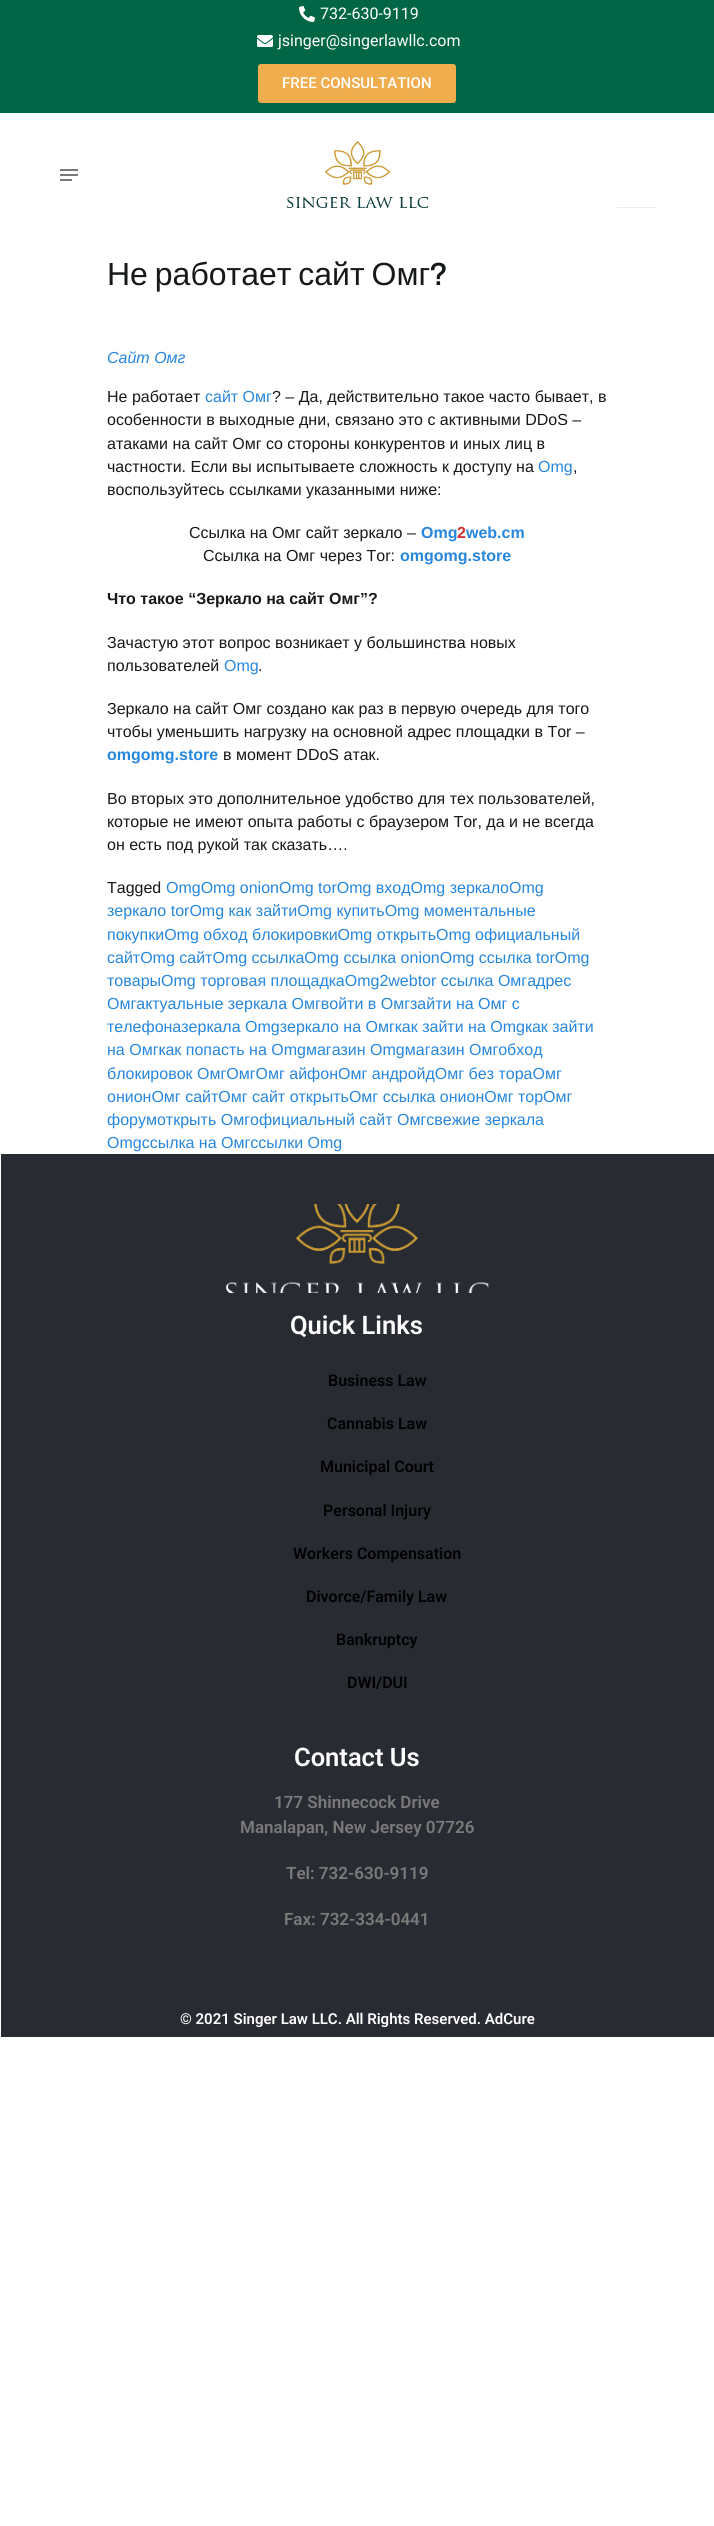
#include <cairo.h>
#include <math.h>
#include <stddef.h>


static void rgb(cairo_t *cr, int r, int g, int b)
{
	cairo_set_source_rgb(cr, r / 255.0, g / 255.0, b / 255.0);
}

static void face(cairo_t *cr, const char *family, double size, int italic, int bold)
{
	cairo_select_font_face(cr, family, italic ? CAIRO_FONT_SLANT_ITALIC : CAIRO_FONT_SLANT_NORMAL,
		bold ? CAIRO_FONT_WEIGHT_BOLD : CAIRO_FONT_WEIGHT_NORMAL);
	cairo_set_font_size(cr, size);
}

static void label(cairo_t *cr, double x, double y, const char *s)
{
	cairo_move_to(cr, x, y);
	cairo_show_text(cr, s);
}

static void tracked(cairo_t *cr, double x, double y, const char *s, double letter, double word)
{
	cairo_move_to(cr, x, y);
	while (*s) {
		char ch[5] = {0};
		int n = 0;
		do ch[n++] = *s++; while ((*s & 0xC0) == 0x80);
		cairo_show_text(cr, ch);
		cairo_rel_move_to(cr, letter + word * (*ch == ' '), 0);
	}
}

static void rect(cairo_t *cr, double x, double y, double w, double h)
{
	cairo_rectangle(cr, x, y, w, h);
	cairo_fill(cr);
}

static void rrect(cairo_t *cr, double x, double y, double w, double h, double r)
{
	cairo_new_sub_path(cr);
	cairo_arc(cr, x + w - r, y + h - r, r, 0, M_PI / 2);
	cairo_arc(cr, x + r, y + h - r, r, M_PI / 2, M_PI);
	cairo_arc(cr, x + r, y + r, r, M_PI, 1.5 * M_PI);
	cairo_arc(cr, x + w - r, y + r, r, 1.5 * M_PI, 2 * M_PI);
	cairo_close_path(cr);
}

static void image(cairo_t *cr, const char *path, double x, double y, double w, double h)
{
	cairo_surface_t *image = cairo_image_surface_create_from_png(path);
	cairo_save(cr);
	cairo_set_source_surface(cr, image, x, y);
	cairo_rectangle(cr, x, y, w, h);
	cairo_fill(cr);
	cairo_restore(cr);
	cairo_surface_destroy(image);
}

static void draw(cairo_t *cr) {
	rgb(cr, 255, 255, 255);
	cairo_paint(cr);
	rgb(cr, 0, 102, 69);
	rect(cr, 0, 0, 714, 113);
	image(cr, "image0.png", 299, 6, 16, 16);
	face(cr, "Roboto", 16, 0, 0);
	rgb(cr, 255, 255, 255);
	label(cr, 320, 19, "732-630-9119");
	image(cr, "image1.png", 257, 35, 16, 12);
	label(cr, 278, 46, "jsinger@singerlawllc.com");
	rgb(cr, 240, 173, 78);
	rrect(cr, 258, 64, 198, 39, 3);
	cairo_fill(cr);
	face(cr, "Roboto Medium", 15, 0, 0);
	rgb(cr, 255, 255, 255);
	label(cr, 282, 88, "FREE CONSULTATION");
	image(cr, "image2.png", 60, 169, 18, 12);
	image(cr, "image3.png", 287, 141, 141, 67);
	rgb(cr, 236, 237, 237);
	rect(cr, 0, 207, 1, 1);
	rect(cr, 617, 207, 40, 1);
	face(cr, "Liberation Sans", 32, 0, 0);
	rgb(cr, 21, 25, 24);
	tracked(cr, 107, 285, "Не работает сайт Омг", 0, -2);
	face(cr, "Archivo Medium", 32, 0, 0);
	label(cr, 429, 285, "?");
	face(cr, "Liberation Sans", 16, 1, 0);
	rgb(cr, 39, 134, 222);
	label(cr, 107, 363, "Сайт Омг");
	face(cr, "Liberation Sans", 16, 0, 0);
	rgb(cr, 21, 25, 24);
	label(cr, 107, 402, "Не работает");
	rgb(cr, 39, 134, 222);
	label(cr, 205, 402, "сайт Омг");
	rgb(cr, 21, 25, 24);
	label(cr, 272, 402, "? – Да, действительно такое часто бывает, в");
	label(cr, 107, 425, "особенности в выходные дни, связано это с активными DDoS –");
	label(cr, 107, 449, "атаками на сайт Омг со стороны конкурентов и иных лиц в");
	label(cr, 107, 472, "частности. Если вы испытываете сложность к доступу на");
	rgb(cr, 39, 134, 222);
	label(cr, 538, 472, "Omg");
	rgb(cr, 21, 25, 24);
	label(cr, 573, 472, ",");
	label(cr, 107, 495, "воспользуйтесь ссылками указанными ниже:");
	label(cr, 189, 538, "Ссылка на Омг сайт зеркало –");
	face(cr, "Liberation Sans", 16, 0, 1);
	rgb(cr, 39, 134, 222);
	label(cr, 421, 538, "Omg");
	rgb(cr, 207, 46, 46);
	label(cr, 457, 538, "2");
	rgb(cr, 39, 134, 222);
	label(cr, 466, 538, "web.cm");
	face(cr, "Liberation Sans", 16, 0, 0);
	rgb(cr, 21, 25, 24);
	label(cr, 203, 561, "Ссылка на Омг через Tor:");
	face(cr, "Liberation Sans", 16, 0, 1);
	rgb(cr, 39, 134, 222);
	label(cr, 400, 561, "omgomg.store");
	rgb(cr, 21, 25, 24);
	label(cr, 107, 604, "Что такое “Зеркало на сайт Омг”?");
	face(cr, "Liberation Sans", 16, 0, 0);
	label(cr, 107, 648, "Зачастую этот вопрос возникает у большинства новых");
	label(cr, 107, 671, "пользователей");
	rgb(cr, 39, 134, 222);
	label(cr, 224, 671, "Omg");
	rgb(cr, 21, 25, 24);
	label(cr, 258, 671, ".");
	label(cr, 107, 714, "Зеркало на сайт Омг создано как раз в первую очередь для того");
	label(cr, 107, 737, "чтобы уменьшить нагрузку на основной адрес площадки в Tor –");
	face(cr, "Liberation Sans", 16, 0, 1);
	rgb(cr, 39, 134, 222);
	label(cr, 107, 760, "omgomg.store");
	face(cr, "Liberation Sans", 16, 0, 0);
	rgb(cr, 21, 25, 24);
	label(cr, 223, 760, "в момент DDoS атак.");
	label(cr, 107, 804, "Во вторых это дополнительное удобство для тех пользователей,");
	label(cr, 107, 827, "которые не имеют опыта работы с браузером Tor, да и не всегда");
	label(cr, 107, 850, "он есть под рукой так сказать….");
	label(cr, 107, 893, "Tagged");
	rgb(cr, 39, 134, 222);
	label(cr, 166, 893, "OmgOmg onionOmg torOmg входOmg зеркалоOmg");
	label(cr, 107, 916, "зеркало torOmg как зайтиOmg купитьOmg моментальные");
	label(cr, 107, 940, "покупкиOmg обход блокировкиOmg открытьOmg официальный");
	label(cr, 107, 963, "сайтOmg сайтOmg ссылкаOmg ссылка onionOmg ссылка torOmg");
	label(cr, 107, 986, "товарыOmg торговая площадкаOmg2webtor ссылка Омгадрес");
	label(cr, 107, 1009, "Омгактуальные зеркала Омгвойти в Омгзайти на Омг с");
	label(cr, 107, 1032, "телефоназеркала Omgзеркало на Омгкак зайти на Omgкак зайти");
	label(cr, 107, 1055, "на Омгкак попасть на Omgмагазин Omgмагазин Омгобход");
	label(cr, 107, 1079, "блокировок ОмгОмгОмг айфонОмг андройдОмг без тораОмг");
	label(cr, 107, 1102, "онионОмг сайтОмг сайт открытьОмг ссылка онионОмг торОмг");
	label(cr, 107, 1125, "форумоткрыть Омгофициальный сайт Омгсвежие зеркала");
	label(cr, 107, 1148, "Omgссылка на Омгссылки Omg");
	rgb(cr, 41, 43, 51);
	rect(cr, 1, 1154, 713, 883);
	image(cr, "image4.png", 225, 1204, 264, 89);
	face(cr, "Roboto SemiBold", 25.5, 0, 0);
	rgb(cr, 255, 255, 255);
	label(cr, 290, 1334, "Quick Links");
	face(cr, "Roboto SemiBold", 16, 0, 0);
	rgb(cr, 0, 0, 0);
	label(cr, 328, 1386, "Business Law");
	label(cr, 327, 1429, "Cannabis Law");
	label(cr, 320, 1472, "Municipal Court");
	label(cr, 323, 1516, "Personal Injury");
	label(cr, 293, 1559, "Workers Compensation");
	label(cr, 306, 1602, "Divorce/Family Law");
	label(cr, 336, 1645, "Bankruptcy");
	label(cr, 347, 1688, "DWI/DUI");
	face(cr, "Roboto SemiBold", 25.5, 0, 0);
	rgb(cr, 255, 255, 255);
	label(cr, 294, 1766, "Contact Us");
	face(cr, "Roboto SemiBold", 17, 0, 0);
	rgb(cr, 122, 122, 122);
	label(cr, 274, 1808, "177 Shinnecock Drive");
	label(cr, 240, 1833, "Manalapan, New Jersey 07726");
	label(cr, 286, 1879, "Tel: 732-630-9119");
	label(cr, 284, 1925, "Fax: 732-334-0441");
	face(cr, "Roboto SemiBold", 15, 0, 0);
	rgb(cr, 255, 255, 255);
	label(cr, 180, 2024, "© 2021 Singer Law LLC. All Rights Reserved. AdCure");
}

int main(void) {
	cairo_surface_t *surface = cairo_image_surface_create(CAIRO_FORMAT_RGB24, 714, 2526);
	cairo_t *cr = cairo_create(surface);
	cairo_font_options_t *options = cairo_font_options_create();
	cairo_font_options_set_hint_metrics(options, CAIRO_HINT_METRICS_OFF);
	cairo_font_options_set_hint_style(options, CAIRO_HINT_STYLE_NONE);
	cairo_set_font_options(cr, options);
	cairo_set_miter_limit(cr, 4);
	draw(cr);
	cairo_surface_write_to_png(surface, "render.png");
	cairo_font_options_destroy(options);
	cairo_destroy(cr);
	cairo_surface_destroy(surface);
	return 0;
}
